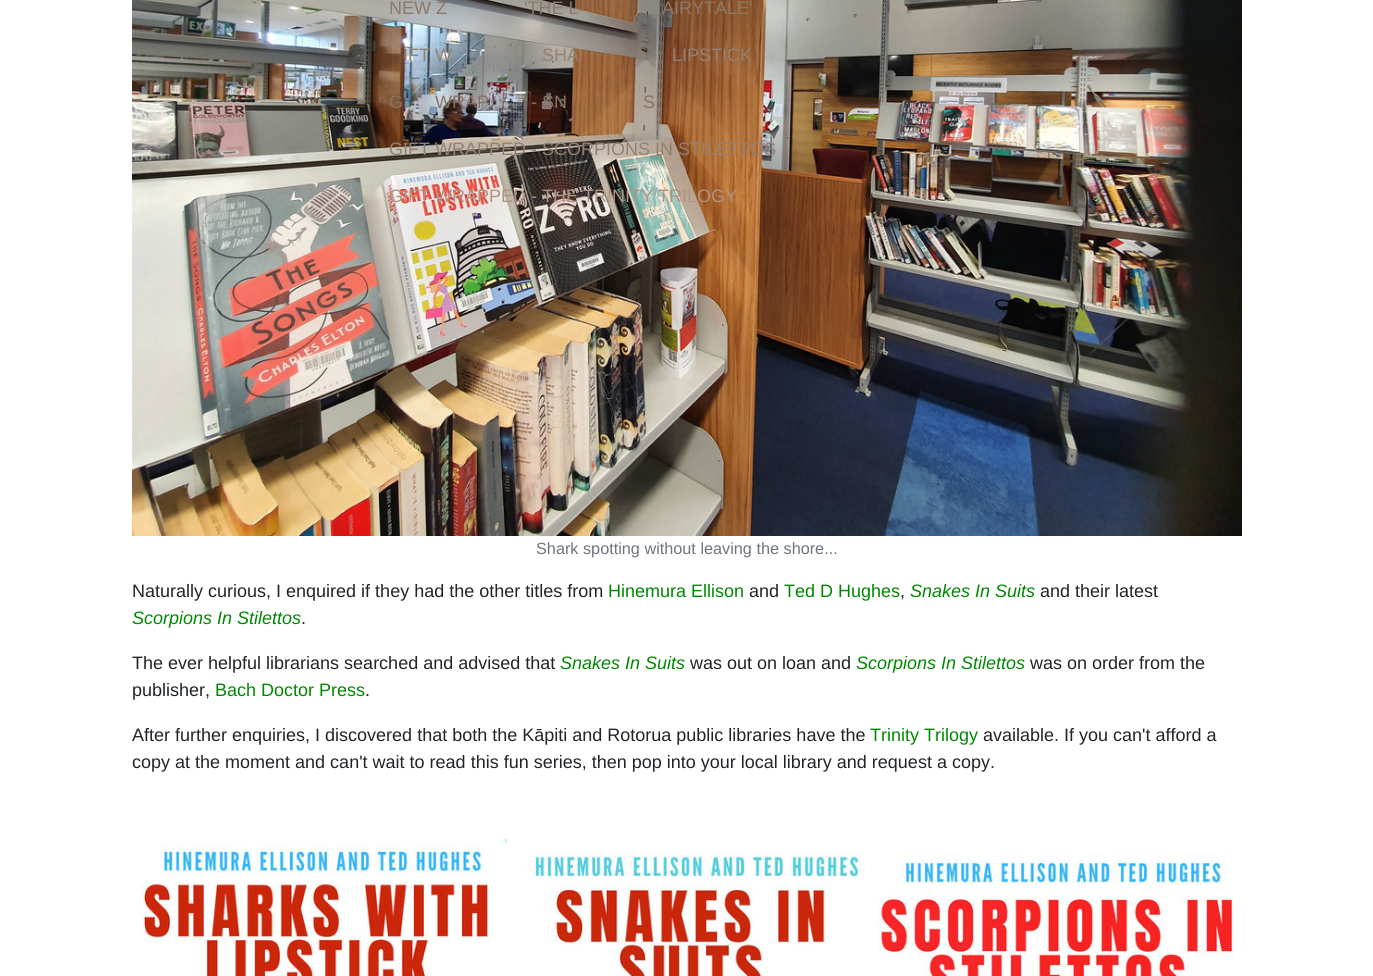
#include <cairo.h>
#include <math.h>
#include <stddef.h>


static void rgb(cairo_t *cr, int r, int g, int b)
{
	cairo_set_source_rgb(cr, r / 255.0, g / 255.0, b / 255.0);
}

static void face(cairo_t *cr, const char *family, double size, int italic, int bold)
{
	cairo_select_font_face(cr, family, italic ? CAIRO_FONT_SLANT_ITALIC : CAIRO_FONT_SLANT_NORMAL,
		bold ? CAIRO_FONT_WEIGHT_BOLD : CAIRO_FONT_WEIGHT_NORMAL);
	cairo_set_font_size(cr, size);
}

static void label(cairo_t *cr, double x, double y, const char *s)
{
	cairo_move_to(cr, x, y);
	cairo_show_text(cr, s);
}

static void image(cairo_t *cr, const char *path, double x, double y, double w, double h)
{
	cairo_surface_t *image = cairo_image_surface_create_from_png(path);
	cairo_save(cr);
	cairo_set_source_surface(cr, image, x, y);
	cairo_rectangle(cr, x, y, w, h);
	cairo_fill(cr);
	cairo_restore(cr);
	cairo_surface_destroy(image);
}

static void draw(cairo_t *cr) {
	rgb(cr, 255, 255, 255);
	cairo_paint(cr);
	image(cr, "image0.png", 132, 0, 1110, 536);
	face(cr, "Liberation Sans", 18, 0, 0);
	rgb(cr, 141, 121, 105);
	label(cr, 389, 14, "NEW Z");
	label(cr, 524, 14, "'THE L");
	label(cr, 662, 14, "AIRYTALE'");
	rgb(cr, 147, 128, 114);
	label(cr, 403, 61, "IFT W");
	label(cr, 542, 61, "SHA");
	label(cr, 672, 61, "LIPSTICK");
	rgb(cr, 137, 114, 99);
	label(cr, 389, 108, "G");
	label(cr, 435, 108, "WRAP");
	label(cr, 531, 108, "- SN");
	label(cr, 643, 108, "S");
	rgb(cr, 147, 128, 114);
	label(cr, 389, 155, "GIFT WRAPPED - SCORPIONS IN STILETTOS");
	rgb(cr, 176, 145, 130);
	label(cr, 389, 202, "GIFT WRAPPED - THE TRINITY TRILOGY");
	face(cr, "Liberation Sans", 16.25, 0, 0);
	rgb(cr, 108, 117, 125);
	label(cr, 536, 554, "Shark spotting without leaving the shore...");
	face(cr, "Liberation Sans", 18, 0, 0);
	rgb(cr, 33, 37, 41);
	label(cr, 132, 597, "Naturally curious, I enquired if they had the other titles from");
	rgb(cr, 0, 136, 0);
	label(cr, 608, 597, "Hinemura Ellison");
	rgb(cr, 33, 37, 41);
	label(cr, 749, 597, "and");
	rgb(cr, 0, 136, 0);
	label(cr, 784, 597, "Ted D Hughes");
	rgb(cr, 33, 37, 41);
	label(cr, 900, 597, ",");
	face(cr, "Liberation Sans", 18, 1, 0);
	rgb(cr, 0, 136, 0);
	label(cr, 910, 597, "Snakes In Suits");
	face(cr, "Liberation Sans", 18, 0, 0);
	rgb(cr, 33, 37, 41);
	label(cr, 1040, 597, "and their latest");
	face(cr, "Liberation Sans", 18, 1, 0);
	rgb(cr, 0, 136, 0);
	label(cr, 132, 624, "Scorpions In Stilettos");
	face(cr, "Liberation Sans", 18, 0, 0);
	rgb(cr, 33, 37, 41);
	label(cr, 301, 624, ".");
	label(cr, 132, 669, "The ever helpful librarians searched and advised that");
	face(cr, "Liberation Sans", 18, 1, 0);
	rgb(cr, 0, 136, 0);
	label(cr, 560, 669, "Snakes In Suits");
	face(cr, "Liberation Sans", 18, 0, 0);
	rgb(cr, 33, 37, 41);
	label(cr, 690, 669, "was out on loan and");
	face(cr, "Liberation Sans", 18, 1, 0);
	rgb(cr, 0, 136, 0);
	label(cr, 856, 669, "Scorpions In Stilettos");
	face(cr, "Liberation Sans", 18, 0, 0);
	rgb(cr, 33, 37, 41);
	label(cr, 1030, 669, "was on order from the");
	label(cr, 132, 696, "publisher,");
	rgb(cr, 0, 136, 0);
	label(cr, 215, 696, "Bach Doctor Press");
	rgb(cr, 33, 37, 41);
	label(cr, 365, 696, ".");
	label(cr, 132, 741, "After further enquiries, I discovered that both the Kāpiti and Rotorua public libraries have the");
	rgb(cr, 0, 136, 0);
	label(cr, 870, 741, "Trinity Trilogy");
	rgb(cr, 33, 37, 41);
	label(cr, 983, 741, "available. If you can't afford a");
	label(cr, 132, 768, "copy at the moment and can't wait to read this fun series, then pop into your local library and request a copy.");
	image(cr, "image1.png", 139, 839, 1095, 137);
}

int main(void) {
	cairo_surface_t *surface = cairo_image_surface_create(CAIRO_FORMAT_RGB24, 1373, 976);
	cairo_t *cr = cairo_create(surface);
	cairo_font_options_t *options = cairo_font_options_create();
	cairo_font_options_set_hint_metrics(options, CAIRO_HINT_METRICS_OFF);
	cairo_font_options_set_hint_style(options, CAIRO_HINT_STYLE_NONE);
	cairo_set_font_options(cr, options);
	cairo_set_miter_limit(cr, 4);
	draw(cr);
	cairo_surface_write_to_png(surface, "render.png");
	cairo_font_options_destroy(options);
	cairo_destroy(cr);
	cairo_surface_destroy(surface);
	return 0;
}
